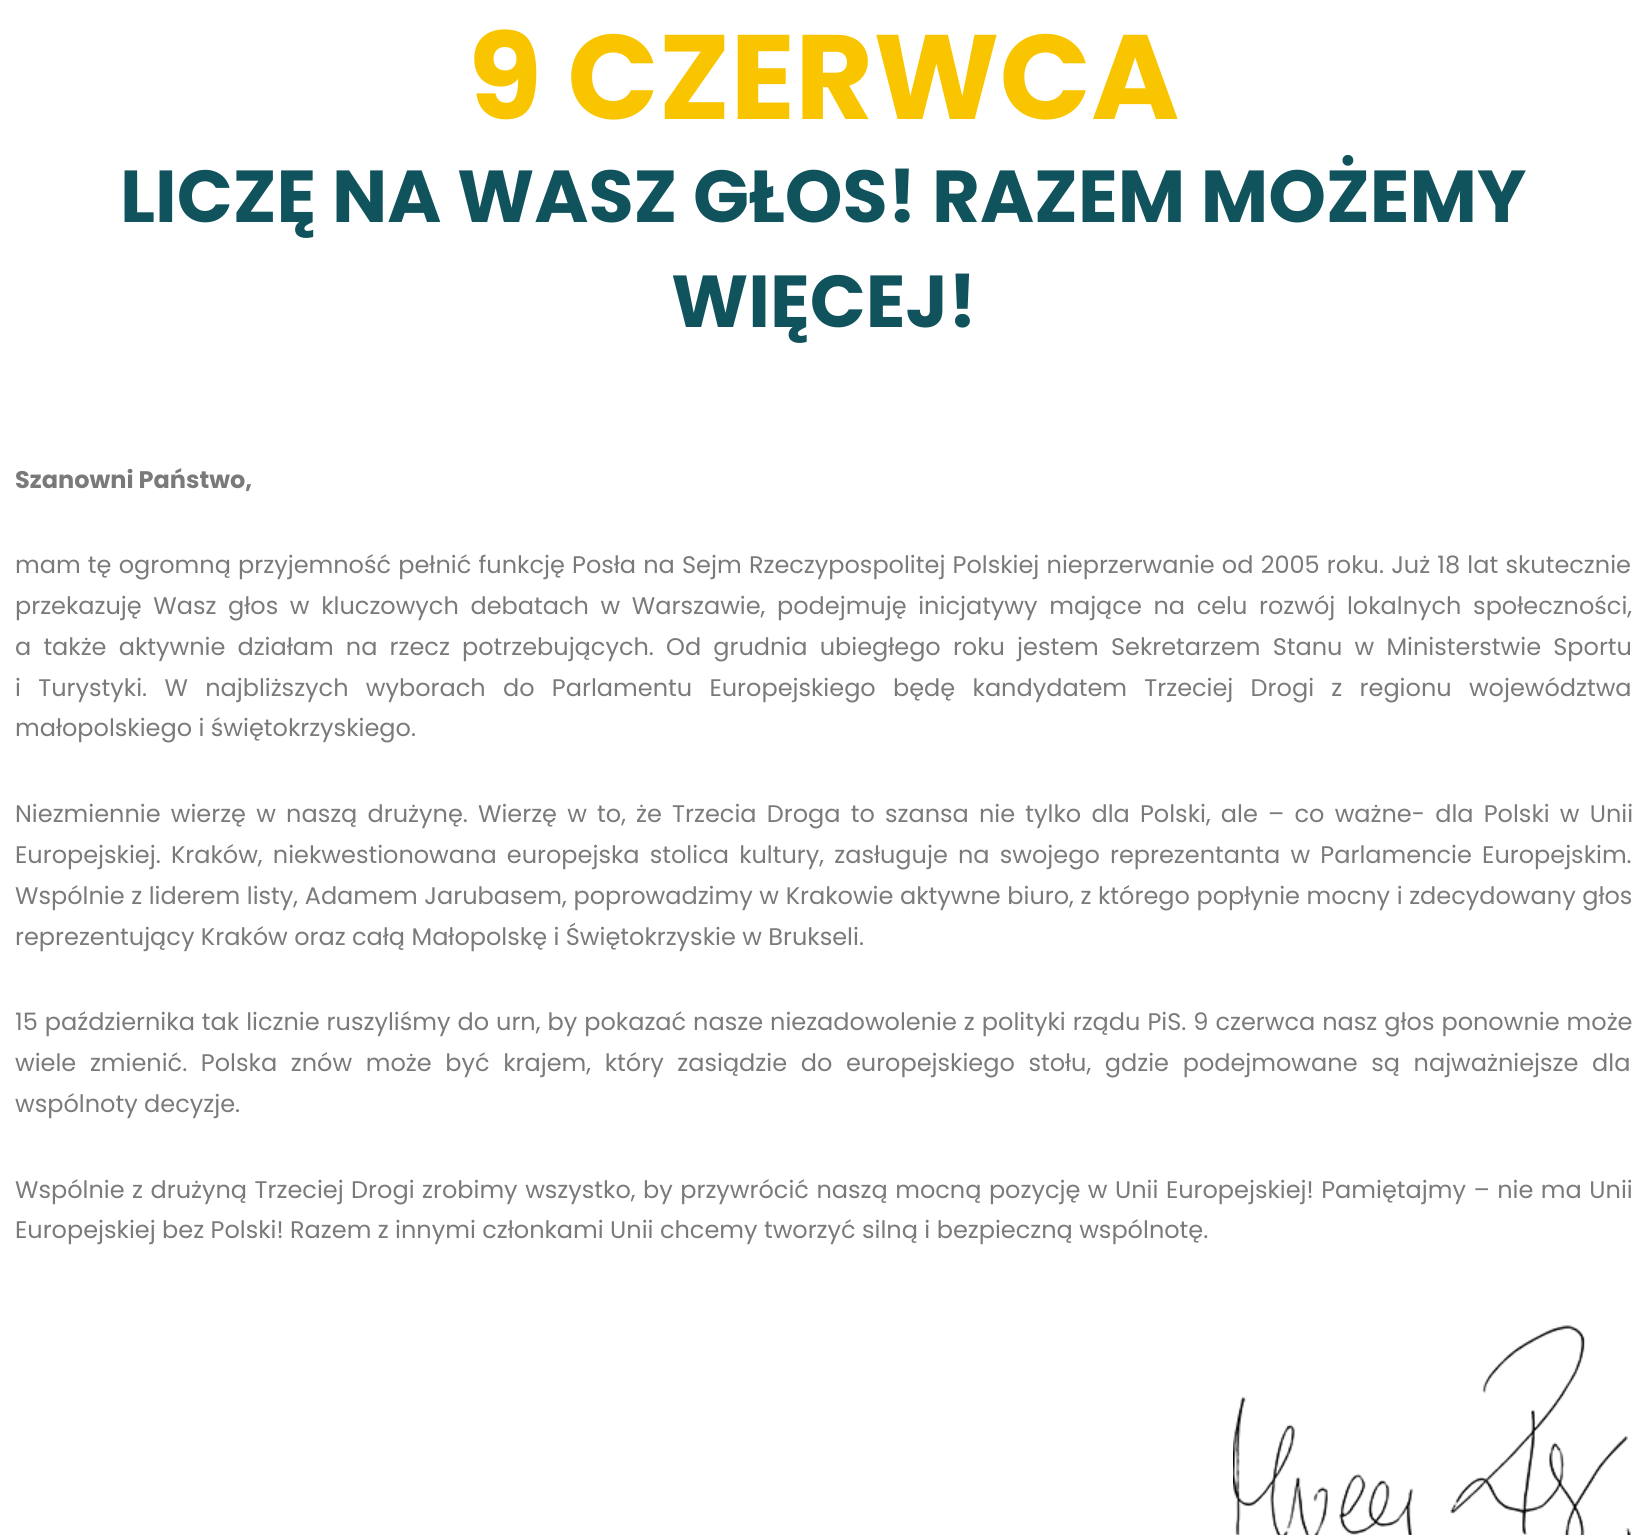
#include <cairo.h>
#include <math.h>
#include <stddef.h>


static void rgb(cairo_t *cr, int r, int g, int b)
{
	cairo_set_source_rgb(cr, r / 255.0, g / 255.0, b / 255.0);
}

static void face(cairo_t *cr, const char *family, double size, int italic, int bold)
{
	cairo_select_font_face(cr, family, italic ? CAIRO_FONT_SLANT_ITALIC : CAIRO_FONT_SLANT_NORMAL,
		bold ? CAIRO_FONT_WEIGHT_BOLD : CAIRO_FONT_WEIGHT_NORMAL);
	cairo_set_font_size(cr, size);
}

static void label(cairo_t *cr, double x, double y, const char *s)
{
	cairo_move_to(cr, x, y);
	cairo_show_text(cr, s);
}

static void tracked(cairo_t *cr, double x, double y, const char *s, double letter, double word)
{
	cairo_move_to(cr, x, y);
	while (*s) {
		char ch[5] = {0};
		int n = 0;
		do ch[n++] = *s++; while ((*s & 0xC0) == 0x80);
		cairo_show_text(cr, ch);
		cairo_rel_move_to(cr, letter + word * (*ch == ' '), 0);
	}
}

static void image(cairo_t *cr, const char *path, double x, double y, double w, double h)
{
	cairo_surface_t *image = cairo_image_surface_create_from_png(path);
	cairo_save(cr);
	cairo_set_source_surface(cr, image, x, y);
	cairo_rectangle(cr, x, y, w, h);
	cairo_fill(cr);
	cairo_restore(cr);
	cairo_surface_destroy(image);
}

static void draw(cairo_t *cr) {
	rgb(cr, 255, 255, 255);
	cairo_paint(cr);
	face(cr, "Poppins", 120, 0, 1);
	rgb(cr, 249, 197, 0);
	label(cr, 468, 119, "9 CZERWCA");
	face(cr, "Poppins", 73.5, 0, 1);
	rgb(cr, 16, 83, 92);
	label(cr, 120, 222, "LICZĘ NA WASZ GŁOS! RAZEM MOŻEMY");
	label(cr, 671, 327, "WIĘCEJ!");
	face(cr, "Poppins", 24, 0, 1);
	rgb(cr, 122, 122, 122);
	label(cr, 15, 488, "Szanowni Państwo,");
	face(cr, "Poppins", 24, 0, 0);
	tracked(cr, 15, 573, "mam tę ogromną przyjemność pełnić funkcję Posła na Sejm Rzeczypospolitej Polskiej nieprzerwanie od 2005 roku. Już 18 lat skutecznie", 0, 0.8);
	tracked(cr, 15, 614, "przekazuję Wasz głos w kluczowych debatach w Warszawie, podejmuję inicjatywy mające na celu rozwój lokalnych społeczności,", 0, 5.25);
	tracked(cr, 15, 655, "a także aktywnie działam na rzecz potrzebujących. Od grudnia ubiegłego roku jestem Sekretarzem Stanu w Ministerstwie Sportu", 0, 5.75);
	tracked(cr, 15, 696, "i Turystyki. W najbliższych wyborach do Parlamentu Europejskiego będę kandydatem Trzeciej Drogi z regionu województwa", 0, 10.9);
	label(cr, 15, 736, "małopolskiego i świętokrzyskiego.");
	tracked(cr, 15, 822, "Niezmiennie wierzę w naszą drużynę. Wierzę w to, że Trzecia Droga to szansa nie tylko dla Polski, ale – co ważne- dla Polski w Unii", 0, 3.8);
	tracked(cr, 15, 863, "Europejskiej. Kraków, niekwestionowana europejska stolica kultury, zasługuje na swojego reprezentanta w Parlamencie Europejskim.", 0, 3.8);
	tracked(cr, 15, 904, "Wspólnie z liderem listy, Adamem Jarubasem, poprowadzimy w Krakowie aktywne biuro, z którego popłynie mocny i zdecydowany głos", 0, 0.2);
	label(cr, 15, 945, "reprezentujący Kraków oraz całą Małopolskę i Świętokrzyskie w Brukseli.");
	tracked(cr, 15, 1030, "15 października tak licznie ruszyliśmy do urn, by pokazać nasze niezadowolenie z polityki rządu PiS. 9 czerwca nasz głos ponownie może", 0, 0.6);
	tracked(cr, 15, 1071, "wiele zmienić. Polska znów może być krajem, który zasiądzie do europejskiego stołu, gdzie podejmowane są najważniejsze dla", 0, 7.25);
	label(cr, 15, 1112, "wspólnoty decyzje.");
	tracked(cr, 15, 1198, "Wspólnie z drużyną Trzeciej Drogi zrobimy wszystko, by przywrócić naszą mocną pozycję w Unii Europejskiej! Pamiętajmy – nie ma Unii", 0, 1.1);
	label(cr, 15, 1238, "Europejskiej bez Polski! Razem z innymi członkami Unii chcemy tworzyć silną i bezpieczną wspólnotę.");
	image(cr, "image0.png", 1233, 1325, 398, 210);
}

int main(void) {
	cairo_surface_t *surface = cairo_image_surface_create(CAIRO_FORMAT_RGB24, 1647, 1535);
	cairo_t *cr = cairo_create(surface);
	cairo_font_options_t *options = cairo_font_options_create();
	cairo_font_options_set_hint_metrics(options, CAIRO_HINT_METRICS_OFF);
	cairo_font_options_set_hint_style(options, CAIRO_HINT_STYLE_NONE);
	cairo_set_font_options(cr, options);
	cairo_set_miter_limit(cr, 4);
	draw(cr);
	cairo_surface_write_to_png(surface, "render.png");
	cairo_font_options_destroy(options);
	cairo_destroy(cr);
	cairo_surface_destroy(surface);
	return 0;
}
